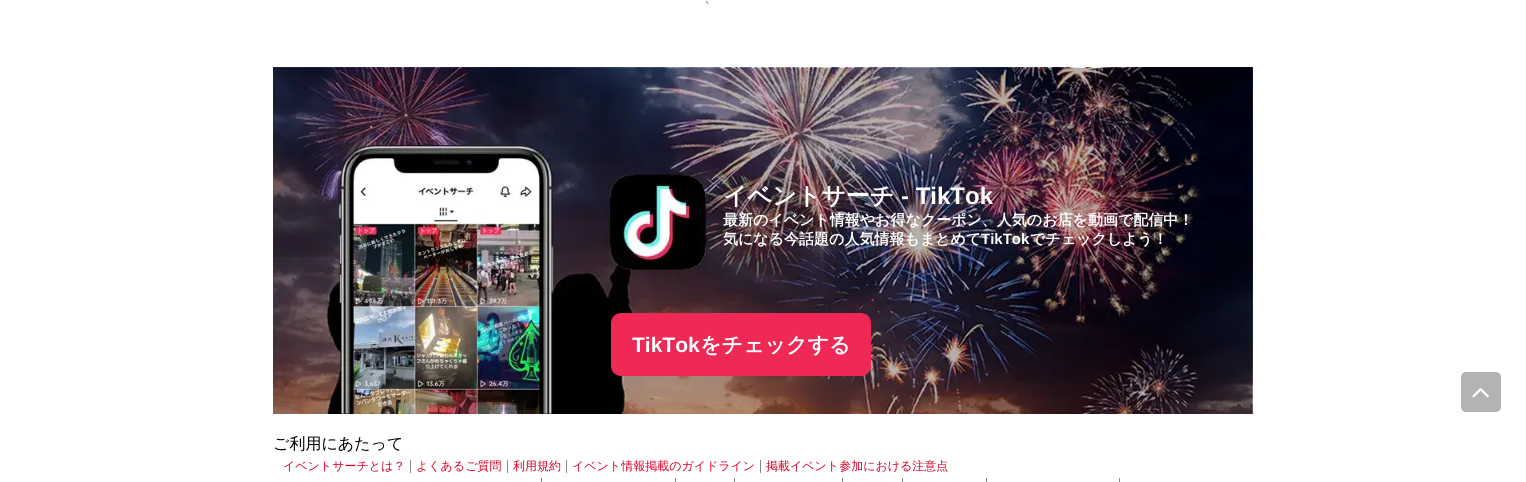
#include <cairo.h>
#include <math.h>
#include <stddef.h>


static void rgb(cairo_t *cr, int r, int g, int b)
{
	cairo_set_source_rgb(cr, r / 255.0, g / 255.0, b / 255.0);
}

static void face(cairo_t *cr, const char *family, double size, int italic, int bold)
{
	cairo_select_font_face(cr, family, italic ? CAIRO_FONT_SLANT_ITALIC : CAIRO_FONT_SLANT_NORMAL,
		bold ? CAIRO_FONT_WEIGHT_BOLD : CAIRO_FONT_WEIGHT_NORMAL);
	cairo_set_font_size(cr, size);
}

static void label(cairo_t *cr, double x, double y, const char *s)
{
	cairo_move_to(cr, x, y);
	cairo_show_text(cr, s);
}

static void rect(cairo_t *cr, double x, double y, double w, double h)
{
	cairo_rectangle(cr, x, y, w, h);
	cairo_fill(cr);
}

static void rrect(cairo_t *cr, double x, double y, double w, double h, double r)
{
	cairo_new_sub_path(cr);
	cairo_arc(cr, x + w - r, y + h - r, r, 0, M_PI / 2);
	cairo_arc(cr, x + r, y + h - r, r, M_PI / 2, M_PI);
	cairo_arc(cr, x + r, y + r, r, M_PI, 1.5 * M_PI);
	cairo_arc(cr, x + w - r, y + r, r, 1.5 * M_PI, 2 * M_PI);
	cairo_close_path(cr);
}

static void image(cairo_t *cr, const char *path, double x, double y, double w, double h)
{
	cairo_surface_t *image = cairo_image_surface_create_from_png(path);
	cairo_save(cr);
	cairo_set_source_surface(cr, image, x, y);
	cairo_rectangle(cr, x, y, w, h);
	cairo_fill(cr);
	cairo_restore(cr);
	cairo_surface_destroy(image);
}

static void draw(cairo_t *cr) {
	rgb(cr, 255, 255, 255);
	cairo_paint(cr);
	face(cr, "WenQuanYi Zen Hei Medium", 14, 0, 0);
	rgb(cr, 106, 105, 105);
	label(cr, 704, 2, "、");
	image(cr, "image0.png", 273, 67, 980, 347);
	face(cr, "WenQuanYi Zen Hei", 24, 0, 1);
	rgb(cr, 255, 255, 255);
	label(cr, 723, 204, "イベントサーチ");
	face(cr, "Liberation Sans", 24, 0, 1);
	label(cr, 901, 204, "- TikTok");
	face(cr, "WenQuanYi Zen Hei", 15, 0, 1);
	label(cr, 723, 225, "最新のイベント情報やお得なクーポン、人気のお店を動画で配信中！");
	label(cr, 723, 244, "気になる今話題の人気情報もまとめて");
	face(cr, "Liberation Sans", 15, 0, 1);
	label(cr, 981, 244, "TikTok");
	face(cr, "WenQuanYi Zen Hei", 15, 0, 1);
	label(cr, 1030, 244, "でチェックしよう！");
	rgb(cr, 238, 41, 85);
	rrect(cr, 611, 313, 260, 63, 10);
	cairo_fill(cr);
	face(cr, "Liberation Sans", 21, 0, 1);
	rgb(cr, 255, 255, 255);
	label(cr, 632, 352, "TikTok");
	face(cr, "WenQuanYi Zen Hei", 21, 0, 1);
	label(cr, 700, 352, "をチェックする");
	face(cr, "WenQuanYi Zen Hei Medium", 16, 0, 0);
	rgb(cr, 0, 0, 0);
	label(cr, 273, 449, "ご利用にあたって");
	face(cr, "WenQuanYi Zen Hei Medium", 12, 0, 0);
	rgb(cr, 216, 0, 37);
	label(cr, 283, 470, "イベントサーチとは？");
	rgb(cr, 136, 136, 136);
	rect(cr, 410, 460, 1, 13);
	rgb(cr, 216, 0, 37);
	label(cr, 416, 470, "よくあるご質問");
	rgb(cr, 136, 136, 136);
	rect(cr, 507, 460, 1, 13);
	rgb(cr, 216, 0, 37);
	label(cr, 513, 470, "利用規約");
	rgb(cr, 136, 136, 136);
	rect(cr, 566, 460, 1, 13);
	rgb(cr, 216, 0, 37);
	label(cr, 572, 470, "イベント情報掲載のガイドライン");
	rgb(cr, 136, 136, 136);
	rect(cr, 760, 460, 1, 13);
	rgb(cr, 216, 0, 37);
	label(cr, 766, 470, "掲載イベント参加における注意点");
	rgb(cr, 136, 136, 136);
	rect(cr, 541, 478, 1, 4);
	rect(cr, 675, 478, 1, 4);
	rect(cr, 734, 478, 1, 4);
	rect(cr, 842, 478, 1, 4);
	rect(cr, 902, 478, 1, 4);
	rect(cr, 986, 478, 1, 4);
	rect(cr, 1119, 478, 1, 4);
	rgb(cr, 179, 179, 179);
	rrect(cr, 1461, 372, 40, 40, 5);
	cairo_fill(cr);
	image(cr, "image1.png", 1472, 387, 17, 11);
}

int main(void) {
	cairo_surface_t *surface = cairo_image_surface_create(CAIRO_FORMAT_RGB24, 1526, 482);
	cairo_t *cr = cairo_create(surface);
	cairo_font_options_t *options = cairo_font_options_create();
	cairo_font_options_set_hint_metrics(options, CAIRO_HINT_METRICS_OFF);
	cairo_font_options_set_hint_style(options, CAIRO_HINT_STYLE_NONE);
	cairo_set_font_options(cr, options);
	cairo_set_miter_limit(cr, 4);
	draw(cr);
	cairo_surface_write_to_png(surface, "render.png");
	cairo_font_options_destroy(options);
	cairo_destroy(cr);
	cairo_surface_destroy(surface);
	return 0;
}
